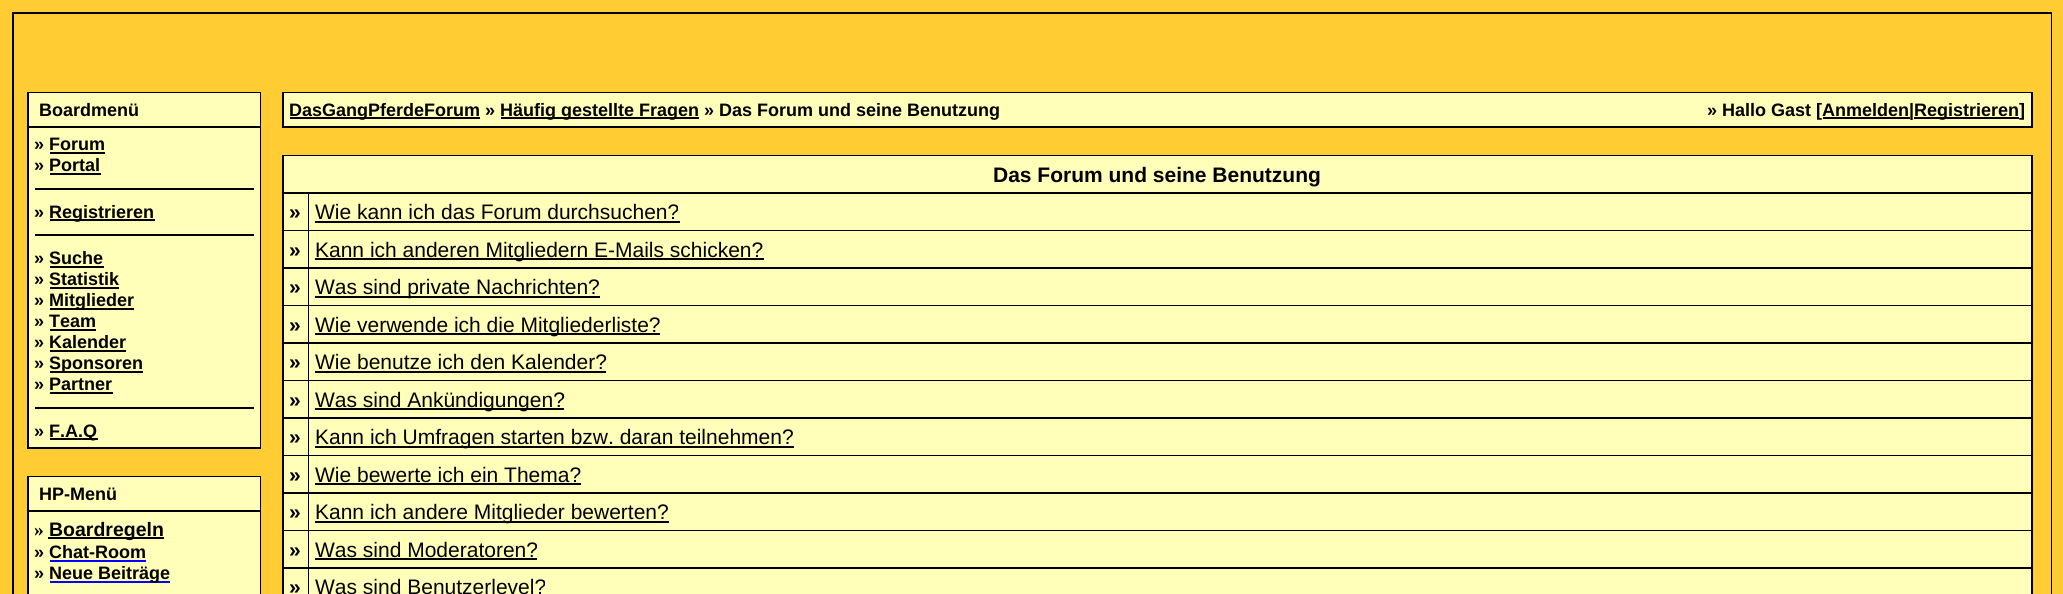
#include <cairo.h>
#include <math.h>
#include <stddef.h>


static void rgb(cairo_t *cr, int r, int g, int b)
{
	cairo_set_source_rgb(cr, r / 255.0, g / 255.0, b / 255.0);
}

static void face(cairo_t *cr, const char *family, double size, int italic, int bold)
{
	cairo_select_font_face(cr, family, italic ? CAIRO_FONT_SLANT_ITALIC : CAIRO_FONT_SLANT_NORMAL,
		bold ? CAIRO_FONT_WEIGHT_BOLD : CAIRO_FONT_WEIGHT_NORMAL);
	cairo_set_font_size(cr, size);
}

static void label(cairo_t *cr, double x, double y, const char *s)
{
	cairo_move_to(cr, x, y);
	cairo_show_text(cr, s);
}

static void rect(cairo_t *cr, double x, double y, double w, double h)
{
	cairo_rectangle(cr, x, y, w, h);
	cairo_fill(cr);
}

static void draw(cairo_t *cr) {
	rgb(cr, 255, 204, 51);
	cairo_paint(cr);
	rgb(cr, 0, 0, 0);
	rect(cr, 12, 12, 2040, 582);
	rgb(cr, 255, 204, 51);
	rect(cr, 14, 14, 2037, 580);
	rgb(cr, 0, 0, 0);
	rect(cr, 27, 92, 234, 357);
	rgb(cr, 255, 255, 185);
	rect(cr, 29, 93, 231, 33);
	face(cr, "Liberation Sans", 18, 0, 1);
	rgb(cr, 0, 0, 0);
	label(cr, 39, 116, "Boardmenü");
	rgb(cr, 255, 255, 185);
	rect(cr, 29, 128, 231, 319);
	rgb(cr, 0, 0, 0);
	label(cr, 34, 150, "» Forum");
	rect(cr, 50, 152, 55, 2);
	label(cr, 34, 171, "» Portal");
	rect(cr, 50, 173, 51, 2);
	rect(cr, 35, 188, 219, 2);
	label(cr, 34, 218, "»");
	rect(cr, 50, 219, 105, 2);
	label(cr, 49, 218, "Registrieren");
	rect(cr, 35, 234, 219, 2);
	label(cr, 34, 264, "» Suche");
	rect(cr, 50, 266, 54, 2);
	label(cr, 34, 285, "» Statistik");
	rect(cr, 50, 287, 69, 2);
	label(cr, 34, 306, "»");
	rect(cr, 50, 308, 84, 2);
	label(cr, 49, 306, "Mitglieder");
	label(cr, 34, 327, "» Team");
	rect(cr, 50, 329, 46, 2);
	label(cr, 34, 348, "» Kalender");
	rect(cr, 50, 350, 76, 2);
	label(cr, 34, 369, "»");
	rect(cr, 50, 371, 93, 2);
	label(cr, 49, 369, "Sponsoren");
	label(cr, 34, 390, "» Partner");
	rect(cr, 50, 392, 63, 2);
	rect(cr, 35, 407, 219, 2);
	label(cr, 34, 437, "»");
	rect(cr, 50, 438, 48, 2);
	label(cr, 49, 437, "F.A.Q");
	rect(cr, 27, 476, 234, 118);
	rgb(cr, 255, 255, 185);
	rect(cr, 29, 477, 231, 33);
	rgb(cr, 0, 0, 0);
	label(cr, 39, 500, "HP-Menü");
	rgb(cr, 255, 255, 185);
	rect(cr, 29, 512, 231, 82);
	face(cr, "Liberation Serif", 19.5, 0, 1);
	rgb(cr, 0, 0, 0);
	label(cr, 34, 536, "»");
	rect(cr, 48, 537, 116, 2);
	face(cr, "Liberation Sans", 19.5, 0, 1);
	label(cr, 49, 536, "Boardregeln");
	face(cr, "Liberation Sans", 18, 0, 1);
	label(cr, 34, 558, "» Chat-Room");
	rgb(cr, 0, 0, 255);
	rect(cr, 50, 560, 96, 2);
	rgb(cr, 0, 0, 0);
	label(cr, 34, 579, "»");
	rgb(cr, 0, 0, 255);
	rect(cr, 50, 581, 120, 2);
	rgb(cr, 0, 0, 0);
	label(cr, 49, 579, "Neue Beiträge");
	rect(cr, 282, 92, 1751, 36);
	rgb(cr, 255, 255, 185);
	rect(cr, 284, 93, 1747, 33);
	rgb(cr, 0, 0, 0);
	rect(cr, 290, 117, 190, 2);
	label(cr, 289, 116, "DasGangPferdeForum »");
	rect(cr, 501, 117, 198, 2);
	label(cr, 500, 116, "Häufig gestellte Fragen » Das Forum und seine Benutzung");
	label(cr, 1707, 116, "» Hallo Gast [Anmelden|");
	rect(cr, 1823, 117, 87, 2);
	rect(cr, 1914, 117, 105, 2);
	label(cr, 1914, 116, "Registrieren]");
	rect(cr, 282, 155, 1751, 439);
	rgb(cr, 255, 255, 185);
	rect(cr, 284, 156, 1747, 36);
	face(cr, "Liberation Sans", 21, 0, 1);
	rgb(cr, 0, 0, 0);
	label(cr, 993, 182, "Das Forum und seine Benutzung");
	rgb(cr, 255, 255, 185);
	rect(cr, 284, 194, 24, 36);
	rgb(cr, 0, 0, 0);
	label(cr, 289, 219, "»");
	rgb(cr, 255, 255, 185);
	rect(cr, 309, 194, 1722, 36);
	face(cr, "Liberation Sans", 21, 0, 0);
	rgb(cr, 0, 0, 0);
	label(cr, 315, 219, "Wie kann ich das Forum durchsuchen?");
	rect(cr, 315, 221, 365, 2);
	rgb(cr, 255, 255, 185);
	rect(cr, 284, 231, 24, 36);
	face(cr, "Liberation Sans", 21, 0, 1);
	rgb(cr, 0, 0, 0);
	label(cr, 289, 257, "»");
	rgb(cr, 255, 255, 185);
	rect(cr, 309, 231, 1722, 36);
	rgb(cr, 0, 0, 0);
	rect(cr, 315, 258, 449, 2);
	face(cr, "Liberation Sans", 21, 0, 0);
	label(cr, 315, 257, "Kann ich anderen Mitgliedern E-Mails schicken?");
	rgb(cr, 255, 255, 185);
	rect(cr, 284, 269, 24, 36);
	face(cr, "Liberation Sans", 21, 0, 1);
	rgb(cr, 0, 0, 0);
	label(cr, 289, 294, "»");
	rgb(cr, 255, 255, 185);
	rect(cr, 309, 269, 1722, 36);
	rgb(cr, 0, 0, 0);
	rect(cr, 315, 296, 285, 2);
	face(cr, "Liberation Sans", 21, 0, 0);
	label(cr, 315, 294, "Was sind private Nachrichten?");
	rgb(cr, 255, 255, 185);
	rect(cr, 284, 306, 24, 36);
	face(cr, "Liberation Sans", 21, 0, 1);
	rgb(cr, 0, 0, 0);
	label(cr, 289, 332, "»");
	rgb(cr, 255, 255, 185);
	rect(cr, 309, 306, 1722, 36);
	rgb(cr, 0, 0, 0);
	rect(cr, 315, 333, 345, 2);
	face(cr, "Liberation Sans", 21, 0, 0);
	label(cr, 315, 332, "Wie verwende ich die Mitgliederliste?");
	rgb(cr, 255, 255, 185);
	rect(cr, 284, 344, 24, 36);
	face(cr, "Liberation Sans", 21, 0, 1);
	rgb(cr, 0, 0, 0);
	label(cr, 289, 369, "»");
	rgb(cr, 255, 255, 185);
	rect(cr, 309, 344, 1722, 36);
	face(cr, "Liberation Sans", 21, 0, 0);
	rgb(cr, 0, 0, 0);
	label(cr, 315, 369, "Wie benutze ich den Kalender?");
	rect(cr, 315, 371, 291, 2);
	rgb(cr, 255, 255, 185);
	rect(cr, 284, 381, 24, 36);
	face(cr, "Liberation Sans", 21, 0, 1);
	rgb(cr, 0, 0, 0);
	label(cr, 289, 407, "»");
	rgb(cr, 255, 255, 185);
	rect(cr, 309, 381, 1722, 36);
	rgb(cr, 0, 0, 0);
	rect(cr, 315, 408, 249, 2);
	face(cr, "Liberation Sans", 21, 0, 0);
	label(cr, 315, 407, "Was sind Ankündigungen?");
	rgb(cr, 255, 255, 185);
	rect(cr, 284, 419, 24, 36);
	face(cr, "Liberation Sans", 21, 0, 1);
	rgb(cr, 0, 0, 0);
	label(cr, 289, 444, "»");
	rgb(cr, 255, 255, 185);
	rect(cr, 309, 419, 1722, 36);
	rgb(cr, 0, 0, 0);
	rect(cr, 315, 446, 479, 2);
	face(cr, "Liberation Sans", 21, 0, 0);
	label(cr, 315, 444, "Kann ich Umfragen starten bzw. daran teilnehmen?");
	rgb(cr, 255, 255, 185);
	rect(cr, 284, 456, 24, 36);
	face(cr, "Liberation Sans", 21, 0, 1);
	rgb(cr, 0, 0, 0);
	label(cr, 289, 482, "»");
	rgb(cr, 255, 255, 185);
	rect(cr, 309, 456, 1722, 36);
	face(cr, "Liberation Sans", 21, 0, 0);
	rgb(cr, 0, 0, 0);
	label(cr, 315, 482, "Wie bewerte ich ein Thema?");
	rect(cr, 315, 483, 266, 2);
	rgb(cr, 255, 255, 185);
	rect(cr, 284, 494, 24, 36);
	face(cr, "Liberation Sans", 21, 0, 1);
	rgb(cr, 0, 0, 0);
	label(cr, 289, 519, "»");
	rgb(cr, 255, 255, 185);
	rect(cr, 309, 494, 1722, 36);
	rgb(cr, 0, 0, 0);
	rect(cr, 315, 521, 354, 2);
	face(cr, "Liberation Sans", 21, 0, 0);
	label(cr, 315, 519, "Kann ich andere Mitglieder bewerten?");
	rgb(cr, 255, 255, 185);
	rect(cr, 284, 531, 24, 36);
	face(cr, "Liberation Sans", 21, 0, 1);
	rgb(cr, 0, 0, 0);
	label(cr, 289, 557, "»");
	rgb(cr, 255, 255, 185);
	rect(cr, 309, 531, 1722, 36);
	face(cr, "Liberation Sans", 21, 0, 0);
	rgb(cr, 0, 0, 0);
	label(cr, 315, 557, "Was sind Moderatoren?");
	rect(cr, 315, 558, 222, 2);
	rgb(cr, 255, 255, 185);
	rect(cr, 284, 569, 24, 25);
	face(cr, "Liberation Sans", 21, 0, 1);
	rgb(cr, 0, 0, 0);
	label(cr, 289, 594, "»");
	rgb(cr, 255, 255, 185);
	rect(cr, 309, 569, 1722, 25);
	face(cr, "Liberation Sans", 21, 0, 0);
	rgb(cr, 0, 0, 0);
	label(cr, 315, 594, "Was sind Benutzerlevel?");
}

int main(void) {
	cairo_surface_t *surface = cairo_image_surface_create(CAIRO_FORMAT_RGB24, 2063, 594);
	cairo_t *cr = cairo_create(surface);
	cairo_font_options_t *options = cairo_font_options_create();
	cairo_font_options_set_hint_metrics(options, CAIRO_HINT_METRICS_OFF);
	cairo_font_options_set_hint_style(options, CAIRO_HINT_STYLE_NONE);
	cairo_set_font_options(cr, options);
	cairo_set_miter_limit(cr, 4);
	draw(cr);
	cairo_surface_write_to_png(surface, "render.png");
	cairo_font_options_destroy(options);
	cairo_destroy(cr);
	cairo_surface_destroy(surface);
	return 0;
}
